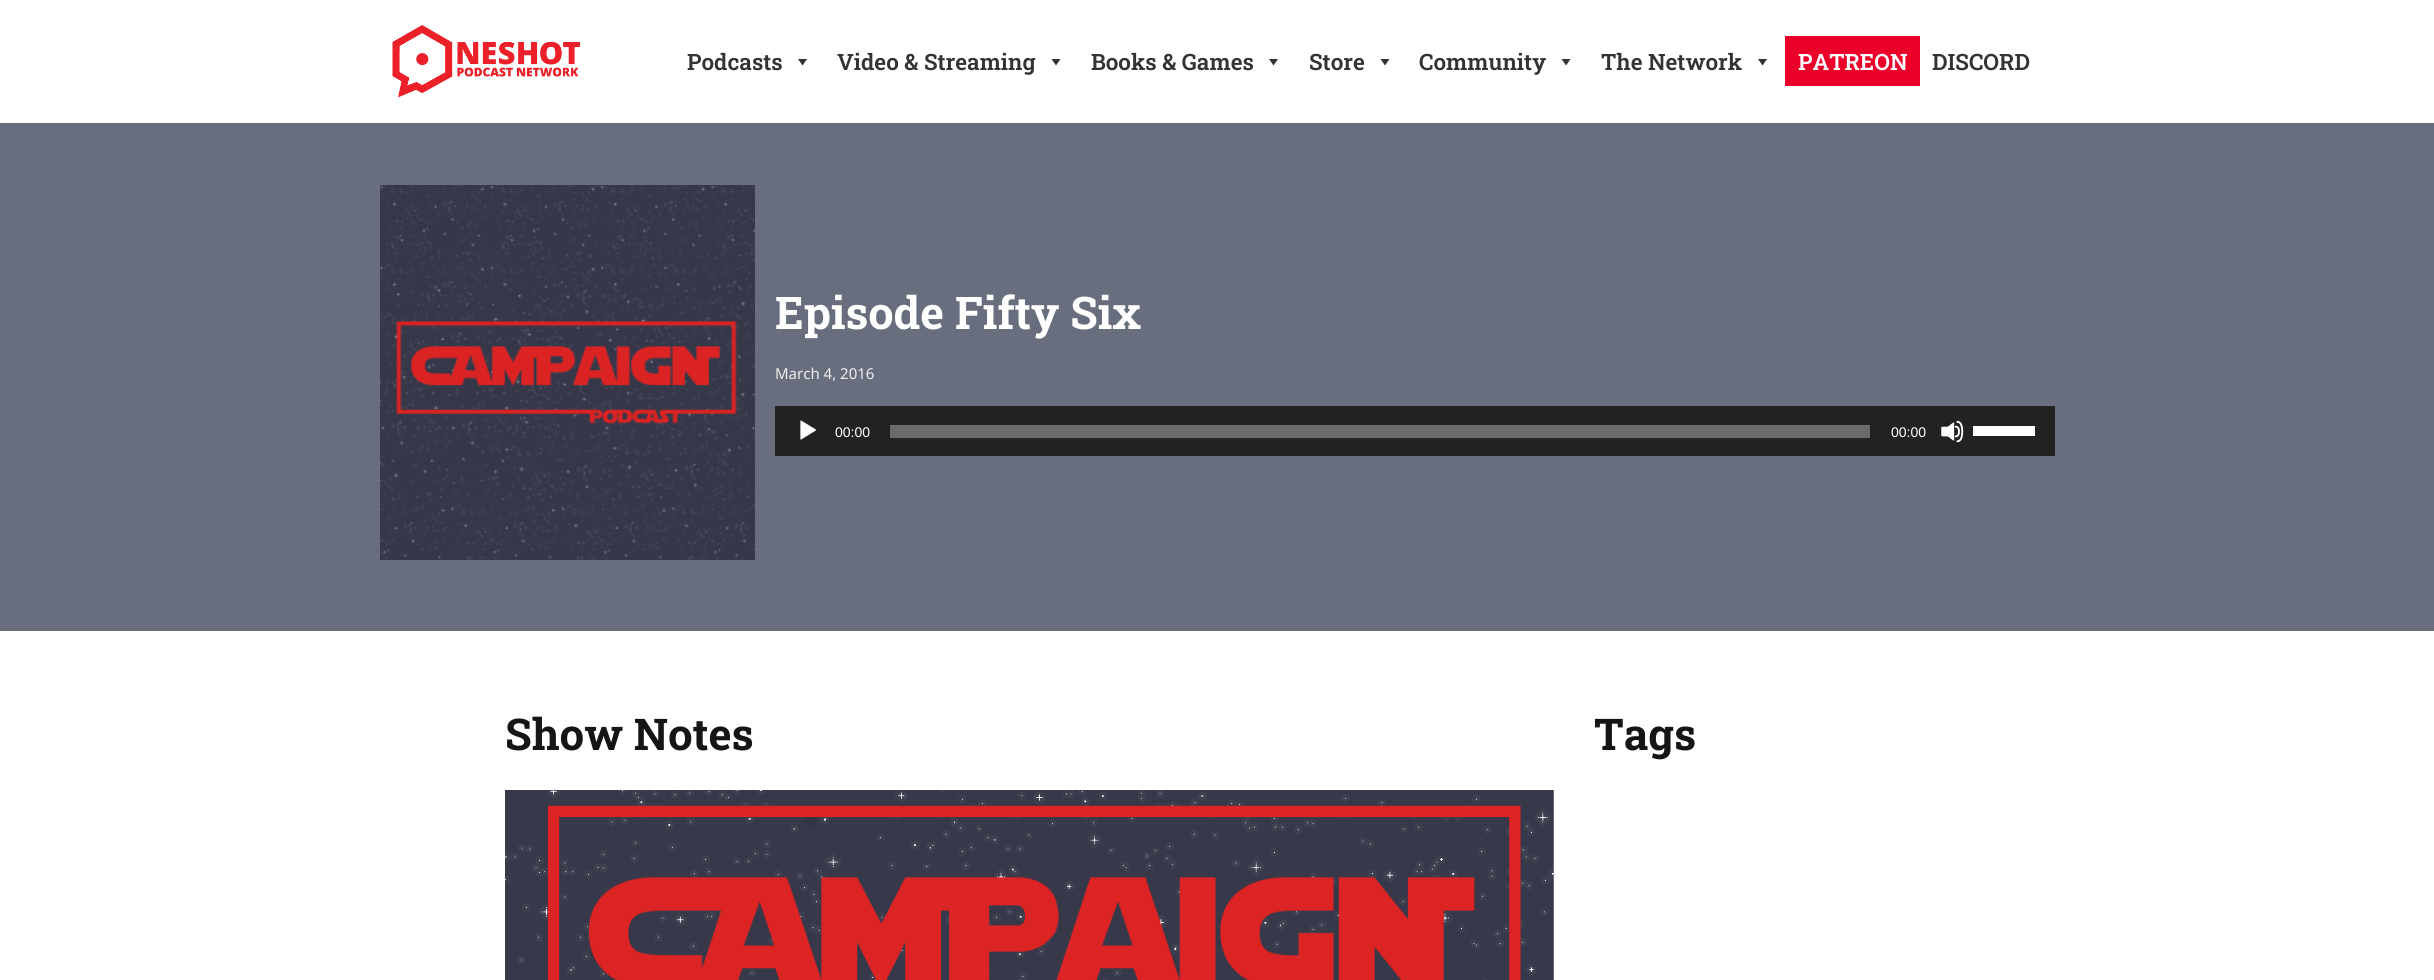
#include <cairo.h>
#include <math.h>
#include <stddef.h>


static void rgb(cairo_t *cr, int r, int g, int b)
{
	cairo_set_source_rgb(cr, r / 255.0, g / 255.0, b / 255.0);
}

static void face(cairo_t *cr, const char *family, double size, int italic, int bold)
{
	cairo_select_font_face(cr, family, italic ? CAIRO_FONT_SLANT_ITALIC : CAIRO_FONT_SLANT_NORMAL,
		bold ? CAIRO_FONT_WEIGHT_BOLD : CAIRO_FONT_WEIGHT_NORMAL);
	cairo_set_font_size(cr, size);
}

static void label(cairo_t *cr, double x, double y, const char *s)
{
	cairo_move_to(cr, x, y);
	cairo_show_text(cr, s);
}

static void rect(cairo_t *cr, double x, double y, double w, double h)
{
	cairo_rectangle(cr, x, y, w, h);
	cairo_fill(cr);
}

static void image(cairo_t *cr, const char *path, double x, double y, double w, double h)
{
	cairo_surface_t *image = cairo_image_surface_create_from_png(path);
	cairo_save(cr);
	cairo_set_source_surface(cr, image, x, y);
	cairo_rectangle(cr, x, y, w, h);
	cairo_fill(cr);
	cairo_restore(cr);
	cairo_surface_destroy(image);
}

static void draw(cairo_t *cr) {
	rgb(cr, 255, 255, 255);
	cairo_paint(cr);
	image(cr, "image0.png", 392, 25, 188, 73);
	face(cr, "Roboto Slab SemiBold", 22.5, 0, 0);
	rgb(cr, 51, 51, 51);
	label(cr, 687, 70, "Podcasts");
	cairo_new_path(cr);
	cairo_move_to(cr, 807, 59);
	cairo_line_to(cr, 802.5, 65.5);
	cairo_line_to(cr, 798, 59);
	cairo_close_path(cr);
	cairo_fill(cr);
	label(cr, 837, 70, "Video & Streaming");
	cairo_new_path(cr);
	cairo_move_to(cr, 1060.5, 59);
	cairo_line_to(cr, 1056, 65.5);
	cairo_line_to(cr, 1051.5, 59);
	cairo_close_path(cr);
	cairo_fill(cr);
	label(cr, 1091, 70, "Books & Games");
	cairo_new_path(cr);
	cairo_move_to(cr, 1278, 59);
	cairo_line_to(cr, 1273.5, 65.5);
	cairo_line_to(cr, 1269, 59);
	cairo_close_path(cr);
	cairo_fill(cr);
	label(cr, 1309, 70, "Store");
	cairo_new_path(cr);
	cairo_move_to(cr, 1389.5, 59);
	cairo_line_to(cr, 1385, 65.5);
	cairo_line_to(cr, 1380.5, 59);
	cairo_close_path(cr);
	cairo_fill(cr);
	label(cr, 1419, 70, "Community");
	cairo_new_path(cr);
	cairo_move_to(cr, 1570.5, 59);
	cairo_line_to(cr, 1566, 65.5);
	cairo_line_to(cr, 1561.5, 59);
	cairo_close_path(cr);
	cairo_fill(cr);
	label(cr, 1601, 70, "The Network");
	cairo_new_path(cr);
	cairo_move_to(cr, 1767, 59);
	cairo_line_to(cr, 1762.5, 65.5);
	cairo_line_to(cr, 1758, 59);
	cairo_close_path(cr);
	cairo_fill(cr);
	rgb(cr, 235, 0, 41);
	rect(cr, 1785, 36, 135, 50);
	rgb(cr, 255, 255, 255);
	label(cr, 1798, 70, "PATREON");
	rgb(cr, 51, 51, 51);
	label(cr, 1932, 70, "DISCORD");
	rgb(cr, 104, 110, 125);
	rect(cr, 0, 123, 2434, 508);
	image(cr, "image1.png", 380, 185, 375, 375);
	face(cr, "Roboto Slab", 45, 0, 1);
	rgb(cr, 255, 255, 255);
	label(cr, 775, 329, "Episode Fifty Six");
	face(cr, "Noto Sans", 15, 0, 0);
	rgb(cr, 238, 238, 238);
	label(cr, 775, 379, "March 4, 2016");
	rgb(cr, 34, 34, 34);
	rect(cr, 775, 406, 1280, 50);
	image(cr, "image2.png", 800, 420, 16, 20);
	face(cr, "Liberation Sans", 14, 0, 0);
	rgb(cr, 255, 255, 255);
	label(cr, 835, 437, "00:00");
	rgb(cr, 107, 107, 107);
	rect(cr, 890, 425, 980, 13);
	rgb(cr, 255, 255, 255);
	label(cr, 1891, 437, "00:00");
	image(cr, "image3.png", 1941, 420, 23, 23);
	rect(cr, 1973, 426, 62, 10);
	face(cr, "Roboto Slab", 43.75, 0, 1);
	rgb(cr, 21, 21, 21);
	label(cr, 505, 750, "Show Notes");
	image(cr, "image4.png", 505, 790, 1049, 190);
	label(cr, 1594, 750, "Tags");
}

int main(void) {
	cairo_surface_t *surface = cairo_image_surface_create(CAIRO_FORMAT_RGB24, 2434, 980);
	cairo_t *cr = cairo_create(surface);
	cairo_font_options_t *options = cairo_font_options_create();
	cairo_font_options_set_hint_metrics(options, CAIRO_HINT_METRICS_OFF);
	cairo_font_options_set_hint_style(options, CAIRO_HINT_STYLE_NONE);
	cairo_set_font_options(cr, options);
	cairo_set_miter_limit(cr, 4);
	draw(cr);
	cairo_surface_write_to_png(surface, "render.png");
	cairo_font_options_destroy(options);
	cairo_destroy(cr);
	cairo_surface_destroy(surface);
	return 0;
}
